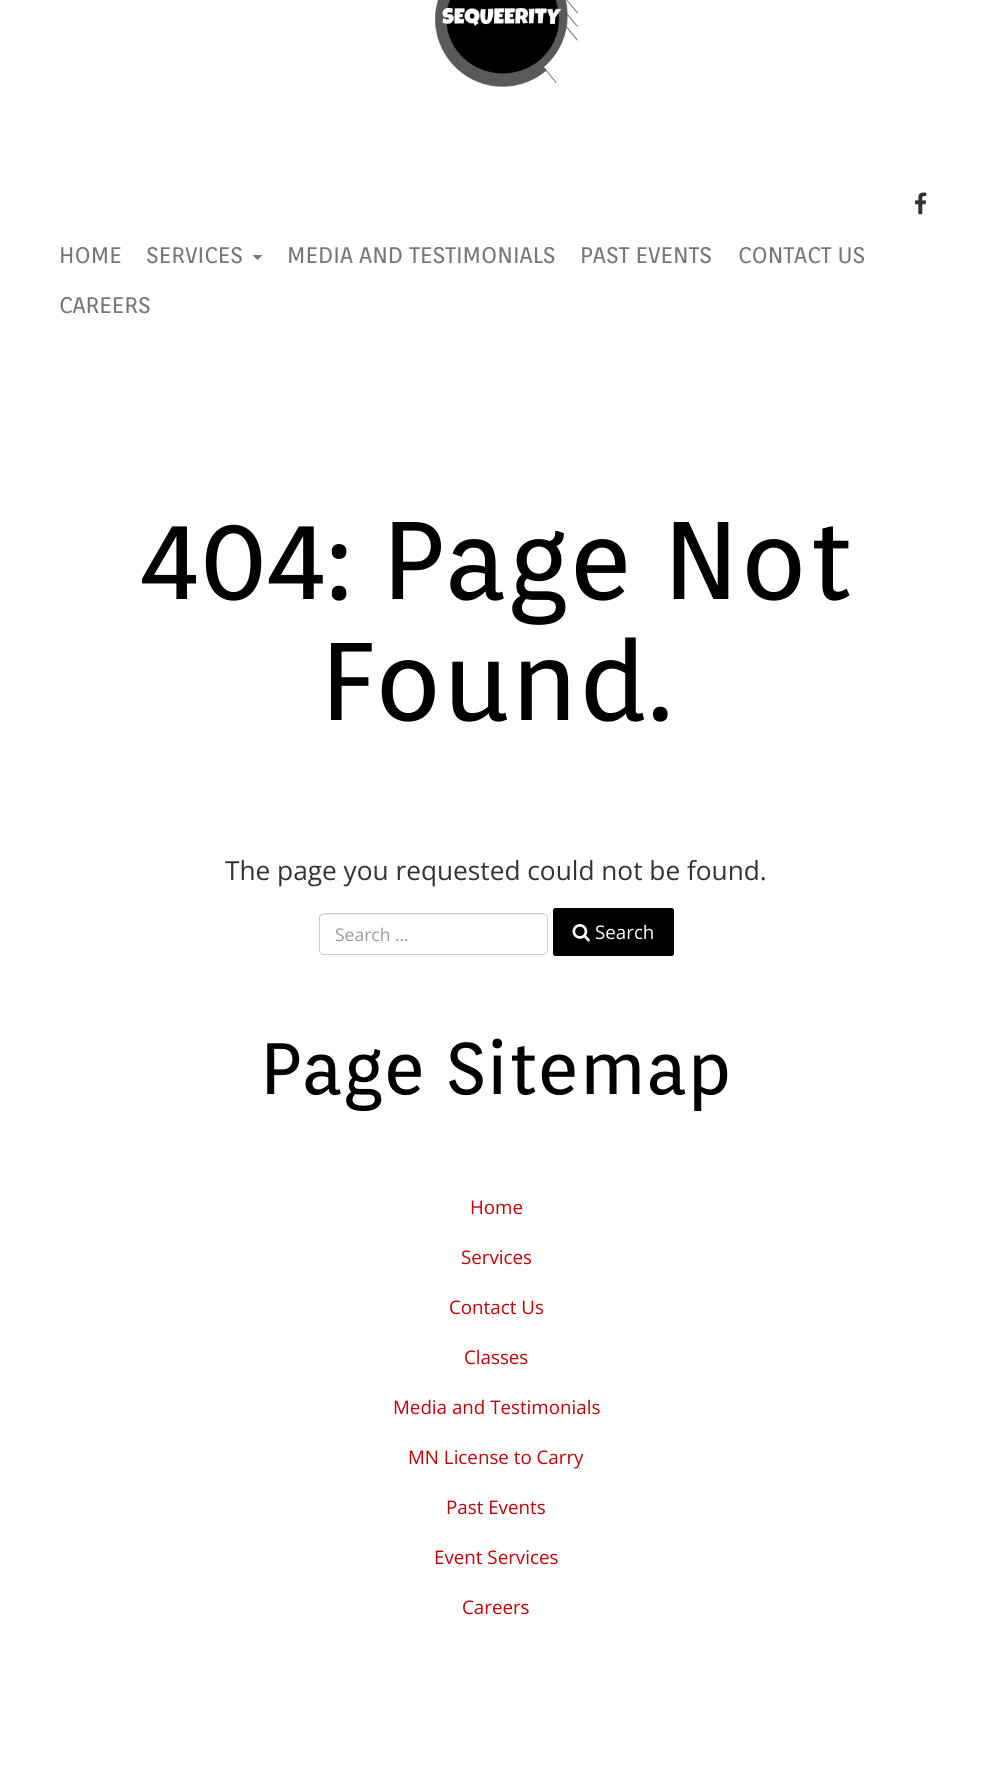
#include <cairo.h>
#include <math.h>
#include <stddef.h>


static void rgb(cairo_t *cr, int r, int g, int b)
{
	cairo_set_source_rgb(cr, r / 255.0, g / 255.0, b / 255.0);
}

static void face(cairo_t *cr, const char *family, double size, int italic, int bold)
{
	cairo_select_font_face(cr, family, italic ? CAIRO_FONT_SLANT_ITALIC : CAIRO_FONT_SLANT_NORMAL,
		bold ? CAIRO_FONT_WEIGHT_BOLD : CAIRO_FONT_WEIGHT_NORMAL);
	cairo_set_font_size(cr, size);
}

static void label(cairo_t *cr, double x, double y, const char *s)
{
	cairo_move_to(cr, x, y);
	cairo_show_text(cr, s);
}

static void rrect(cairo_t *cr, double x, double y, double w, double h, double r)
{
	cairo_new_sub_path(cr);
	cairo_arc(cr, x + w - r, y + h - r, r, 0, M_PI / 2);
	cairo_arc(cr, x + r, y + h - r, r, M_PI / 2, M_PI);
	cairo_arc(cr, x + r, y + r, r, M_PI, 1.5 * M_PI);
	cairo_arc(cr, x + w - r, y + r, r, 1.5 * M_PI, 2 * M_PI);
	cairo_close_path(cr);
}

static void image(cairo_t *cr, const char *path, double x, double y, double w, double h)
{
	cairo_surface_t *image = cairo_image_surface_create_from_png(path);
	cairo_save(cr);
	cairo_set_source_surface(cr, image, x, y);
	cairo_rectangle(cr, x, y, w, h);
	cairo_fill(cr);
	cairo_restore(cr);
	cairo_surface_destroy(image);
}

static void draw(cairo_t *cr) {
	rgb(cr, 255, 255, 255);
	cairo_paint(cr);
	image(cr, "image0.png", 434, 0, 144, 87);
	image(cr, "image1.png", 915, 192, 12, 23);
	face(cr, "Orienta", 22.5, 0, 0);
	rgb(cr, 119, 119, 119);
	label(cr, 59, 263, "HOME");
	label(cr, 146, 263, "SERVICES");
	cairo_new_path(cr);
	cairo_move_to(cr, 252.5, 255);
	cairo_line_to(cr, 262.5, 255);
	cairo_line_to(cr, 257.5, 260);
	cairo_close_path(cr);
	cairo_fill(cr);
	label(cr, 287, 263, "MEDIA AND TESTIMONIALS");
	label(cr, 580, 263, "PAST EVENTS");
	label(cr, 738, 263, "CONTACT US");
	label(cr, 59, 313, "CAREERS");
	face(cr, "Orienta", 110, 0, 0);
	rgb(cr, 0, 0, 0);
	label(cr, 141, 599, "404: Page Not");
	label(cr, 320, 720, "Found.");
	face(cr, "Open Sans", 26.25, 0, 0);
	rgb(cr, 51, 51, 51);
	label(cr, 225, 880, "The page you requested could not be found.");
	rgb(cr, 236, 236, 236);
	cairo_new_path(cr);
	cairo_move_to(cr, 324, 915);
	cairo_line_to(cr, 542, 915);
	cairo_curve_to(cr, 545, 915, 546, 917, 546, 919);
	cairo_curve_to(cr, 546, 916, 545, 914, 542, 914);
	cairo_line_to(cr, 324, 914);
	cairo_curve_to(cr, 321, 914, 320, 916, 320, 919);
	cairo_curve_to(cr, 320, 917, 322, 915, 324, 915);
	cairo_close_path(cr);
	cairo_fill(cr);
	rrect(cr, 319.5, 913.5, 228, 41, 4.5);
	rgb(cr, 204, 204, 204);
	cairo_set_line_width(cr, 1);
	cairo_stroke(cr);
	face(cr, "Open Sans", 17.5, 0, 0);
	rgb(cr, 153, 153, 153);
	label(cr, 335, 941, "Search …");
	rgb(cr, 0, 0, 0);
	rrect(cr, 553.5, 908.5, 120, 47, 2);
	cairo_fill_preserve(cr);
	cairo_stroke(cr);
	image(cr, "image2.png", 572, 924, 18, 18);
	face(cr, "Open Sans", 18.75, 0, 0);
	rgb(cr, 255, 255, 255);
	label(cr, 595, 939, "Search");
	face(cr, "Orienta", 72.5, 0, 0);
	rgb(cr, 0, 0, 0);
	label(cr, 260, 1094, "Page Sitemap");
	face(cr, "Open Sans", 18.75, 0, 0);
	rgb(cr, 193, 0, 6);
	label(cr, 470, 1214, "Home");
	label(cr, 461, 1264, "Services");
	label(cr, 449, 1314, "Contact Us");
	label(cr, 464, 1364, "Classes");
	label(cr, 393, 1414, "Media and Testimonials");
	label(cr, 408, 1464, "MN License to Carry");
	label(cr, 446, 1514, "Past Events");
	label(cr, 434, 1564, "Event Services");
	label(cr, 462, 1614, "Careers");
}

int main(void) {
	cairo_surface_t *surface = cairo_image_surface_create(CAIRO_FORMAT_RGB24, 992, 1775);
	cairo_t *cr = cairo_create(surface);
	cairo_font_options_t *options = cairo_font_options_create();
	cairo_font_options_set_hint_metrics(options, CAIRO_HINT_METRICS_OFF);
	cairo_font_options_set_hint_style(options, CAIRO_HINT_STYLE_NONE);
	cairo_set_font_options(cr, options);
	cairo_set_miter_limit(cr, 4);
	draw(cr);
	cairo_surface_write_to_png(surface, "render.png");
	cairo_font_options_destroy(options);
	cairo_destroy(cr);
	cairo_surface_destroy(surface);
	return 0;
}
